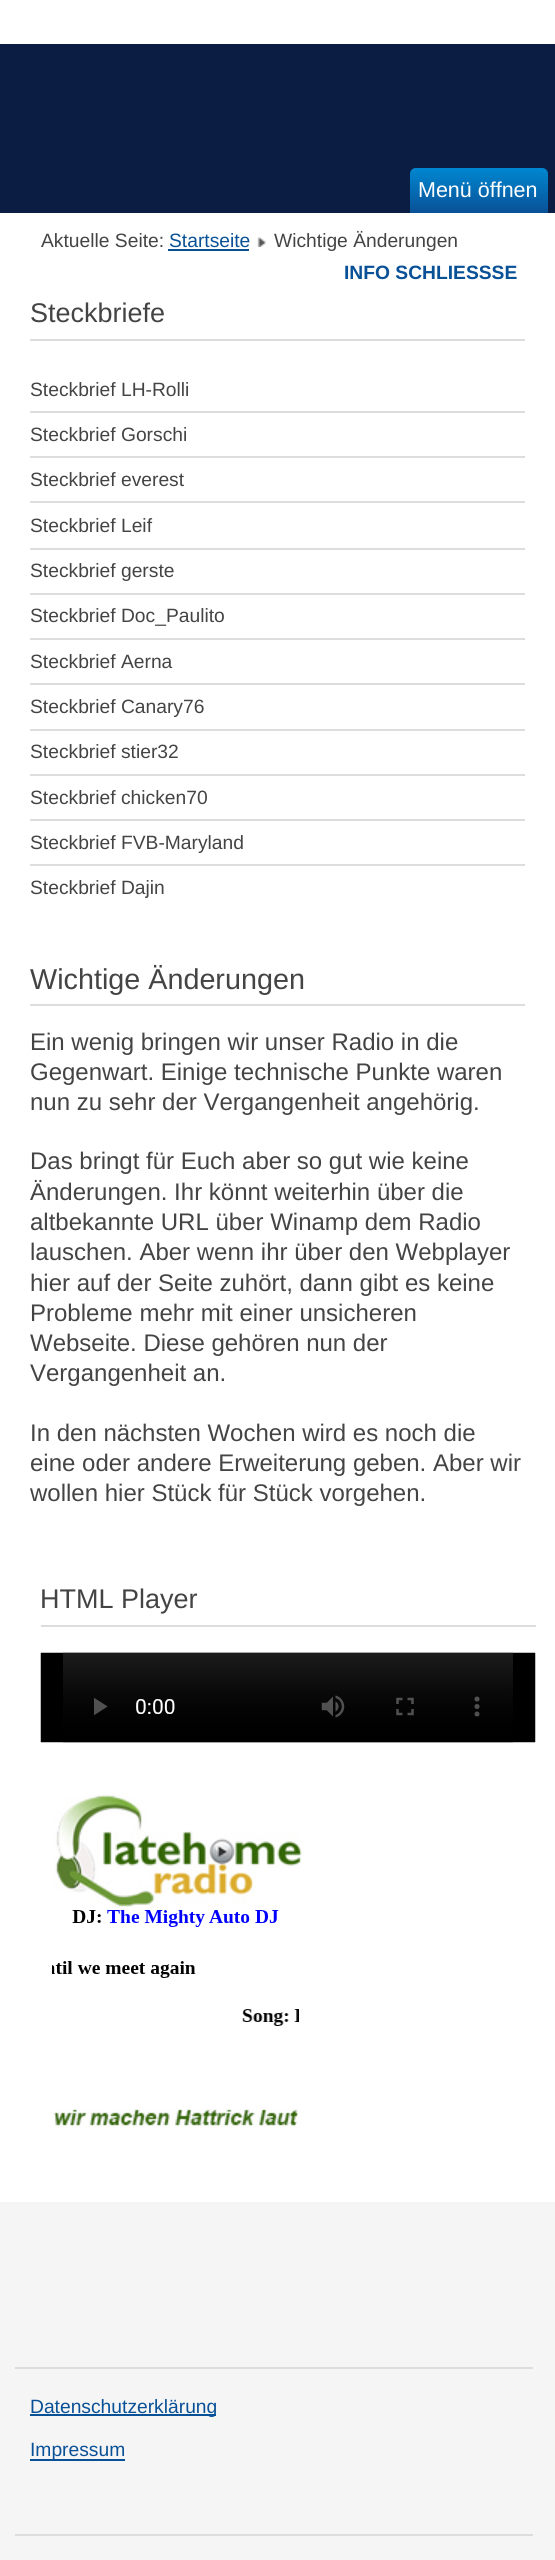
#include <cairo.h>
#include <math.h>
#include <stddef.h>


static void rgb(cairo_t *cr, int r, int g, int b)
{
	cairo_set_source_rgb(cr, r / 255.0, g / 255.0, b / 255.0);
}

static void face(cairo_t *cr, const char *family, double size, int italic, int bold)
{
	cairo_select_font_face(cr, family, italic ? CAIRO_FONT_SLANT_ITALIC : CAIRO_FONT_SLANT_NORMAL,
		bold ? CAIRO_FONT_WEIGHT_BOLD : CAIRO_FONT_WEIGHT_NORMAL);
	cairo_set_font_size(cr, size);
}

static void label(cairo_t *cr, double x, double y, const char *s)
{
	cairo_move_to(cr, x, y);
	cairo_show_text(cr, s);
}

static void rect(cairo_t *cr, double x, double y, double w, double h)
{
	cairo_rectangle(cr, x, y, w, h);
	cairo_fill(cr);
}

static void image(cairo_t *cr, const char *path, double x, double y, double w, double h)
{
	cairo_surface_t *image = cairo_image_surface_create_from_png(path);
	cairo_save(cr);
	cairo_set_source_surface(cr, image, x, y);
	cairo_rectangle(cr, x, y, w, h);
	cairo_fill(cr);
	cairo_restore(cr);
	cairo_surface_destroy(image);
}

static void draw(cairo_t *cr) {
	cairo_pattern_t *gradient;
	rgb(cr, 255, 255, 255);
	cairo_paint(cr);
	rgb(cr, 12, 29, 67);
	rect(cr, 0, 44, 555, 169);
	gradient = cairo_pattern_create_linear(479, 168, 479, 213);
	cairo_pattern_add_color_stop_rgba(gradient, 0, 0, 0.529, 0.82, 1);
	cairo_pattern_add_color_stop_rgba(gradient, 1, 0.035, 0.318, 0.592, 1);
	cairo_set_source(cr, gradient);
	cairo_pattern_destroy(gradient);
	cairo_new_path(cr);
	cairo_move_to(cr, 416, 168);
	cairo_line_to(cr, 542, 168);
	cairo_curve_to(cr, 545.5, 168, 548, 170.5, 548, 174);
	cairo_line_to(cr, 548, 213);
	cairo_line_to(cr, 410, 213);
	cairo_line_to(cr, 410, 174);
	cairo_curve_to(cr, 410, 170.5, 412.5, 168, 416, 168);
	cairo_close_path(cr);
	cairo_fill(cr);
	face(cr, "Liberation Sans", 21.5, 0, 0);
	rgb(cr, 255, 255, 255);
	label(cr, 418, 197, "Menü öffnen");
	face(cr, "Liberation Sans", 19.25, 0, 0);
	rgb(cr, 68, 68, 68);
	label(cr, 41, 247, "Aktuelle Seite:");
	rgb(cr, 9, 81, 151);
	label(cr, 169, 247, "Startseite");
	rect(cr, 168, 249, 81, 2);
	image(cr, "image0.png", 257, 236, 9, 11);
	rgb(cr, 68, 68, 68);
	label(cr, 274, 247, "Wichtige Änderungen");
	face(cr, "Liberation Sans", 19.25, 0, 1);
	rgb(cr, 9, 81, 151);
	label(cr, 344, 279, "INFO SCHLIESSSE");
	rgb(cr, 221, 221, 221);
	rect(cr, 30, 339, 495, 2);
	face(cr, "Liberation Sans", 27, 0, 0);
	rgb(cr, 68, 68, 68);
	label(cr, 30, 322, "Steckbriefe");
	rgb(cr, 221, 221, 221);
	rect(cr, 30, 411, 495, 2);
	face(cr, "Liberation Sans", 19.25, 0, 0);
	rgb(cr, 68, 68, 68);
	label(cr, 30, 396, "Steckbrief LH-Rolli");
	rgb(cr, 221, 221, 221);
	rect(cr, 30, 456, 495, 2);
	rgb(cr, 68, 68, 68);
	label(cr, 30, 441, "Steckbrief Gorschi");
	rgb(cr, 221, 221, 221);
	rect(cr, 30, 501, 495, 2);
	rgb(cr, 68, 68, 68);
	label(cr, 30, 486, "Steckbrief everest");
	rgb(cr, 221, 221, 221);
	rect(cr, 30, 548, 495, 2);
	rgb(cr, 68, 68, 68);
	label(cr, 30, 532, "Steckbrief Leif");
	rgb(cr, 221, 221, 221);
	rect(cr, 30, 593, 495, 2);
	rgb(cr, 68, 68, 68);
	label(cr, 30, 577, "Steckbrief gerste");
	rgb(cr, 221, 221, 221);
	rect(cr, 30, 638, 495, 2);
	rgb(cr, 68, 68, 68);
	label(cr, 30, 622, "Steckbrief Doc_Paulito");
	rgb(cr, 221, 221, 221);
	rect(cr, 30, 683, 495, 2);
	rgb(cr, 68, 68, 68);
	label(cr, 30, 668, "Steckbrief Aerna");
	rgb(cr, 221, 221, 221);
	rect(cr, 30, 729, 495, 2);
	rgb(cr, 68, 68, 68);
	label(cr, 30, 713, "Steckbrief Canary76");
	rgb(cr, 221, 221, 221);
	rect(cr, 30, 774, 495, 2);
	rgb(cr, 68, 68, 68);
	label(cr, 30, 758, "Steckbrief stier32");
	rgb(cr, 221, 221, 221);
	rect(cr, 30, 819, 495, 2);
	rgb(cr, 68, 68, 68);
	label(cr, 30, 804, "Steckbrief chicken70");
	rgb(cr, 221, 221, 221);
	rect(cr, 30, 864, 495, 2);
	rgb(cr, 68, 68, 68);
	label(cr, 30, 849, "Steckbrief FVB-Maryland");
	label(cr, 30, 894, "Steckbrief Dajin");
	rgb(cr, 221, 221, 221);
	rect(cr, 30, 1004, 495, 2);
	face(cr, "Liberation Sans", 28.75, 0, 0);
	rgb(cr, 68, 68, 68);
	label(cr, 30, 989, "Wichtige Änderungen");
	face(cr, "Liberation Sans", 24, 0, 0);
	label(cr, 30, 1050, "Ein wenig bringen wir unser Radio in die");
	label(cr, 30, 1080, "Gegenwart. Einige technische Punkte waren");
	label(cr, 30, 1110, "nun zu sehr der Vergangenheit angehörig.");
	label(cr, 30, 1169, "Das bringt für Euch aber so gut wie keine");
	label(cr, 30, 1200, "Änderungen. Ihr könnt weiterhin über die");
	label(cr, 30, 1230, "altbekannte URL über Winamp dem Radio");
	label(cr, 30, 1260, "lauschen. Aber wenn ihr über den Webplayer");
	label(cr, 30, 1291, "hier auf der Seite zuhört, dann gibt es keine");
	label(cr, 30, 1321, "Probleme mehr mit einer unsicheren");
	label(cr, 30, 1351, "Webseite. Diese gehören nun der");
	label(cr, 30, 1381, "Vergangenheit an.");
	label(cr, 30, 1441, "In den nächsten Wochen wird es noch die");
	label(cr, 30, 1471, "eine oder andere Erweiterung geben. Aber wir");
	label(cr, 30, 1501, "wollen hier Stück für Stück vorgehen.");
	rgb(cr, 221, 221, 221);
	rect(cr, 41, 1625, 495, 2);
	face(cr, "Liberation Sans", 27, 0, 0);
	rgb(cr, 68, 68, 68);
	label(cr, 40, 1608, "HTML Player");
	image(cr, "image1.png", 40, 1652, 496, 91);
	image(cr, "image2.png", 52, 1794, 250, 334);
	rgb(cr, 245, 245, 245);
	rect(cr, 0, 2202, 555, 358);
	rgb(cr, 221, 221, 221);
	rect(cr, 15, 2367, 518, 2);
	rect(cr, 15, 2534, 518, 2);
	rgb(cr, 9, 81, 151);
	rect(cr, 30, 2414, 186, 2);
	face(cr, "Liberation Sans", 19.25, 0, 0);
	label(cr, 30, 2413, "Datenschutzerklärung");
	rect(cr, 30, 2459, 95, 2);
	label(cr, 30, 2456, "Impressum");
}

int main(void) {
	cairo_surface_t *surface = cairo_image_surface_create(CAIRO_FORMAT_RGB24, 555, 2560);
	cairo_t *cr = cairo_create(surface);
	cairo_font_options_t *options = cairo_font_options_create();
	cairo_font_options_set_hint_metrics(options, CAIRO_HINT_METRICS_OFF);
	cairo_font_options_set_hint_style(options, CAIRO_HINT_STYLE_NONE);
	cairo_set_font_options(cr, options);
	cairo_set_miter_limit(cr, 4);
	draw(cr);
	cairo_surface_write_to_png(surface, "render.png");
	cairo_font_options_destroy(options);
	cairo_destroy(cr);
	cairo_surface_destroy(surface);
	return 0;
}
